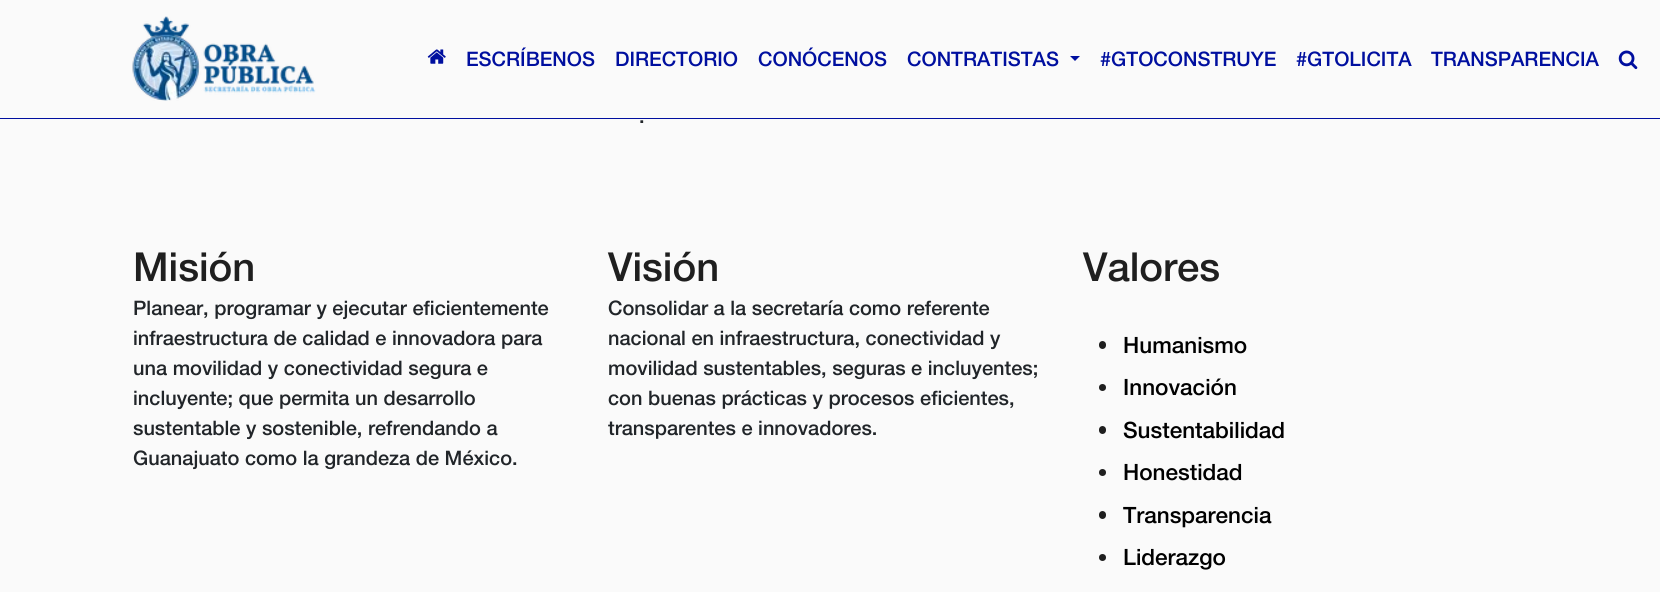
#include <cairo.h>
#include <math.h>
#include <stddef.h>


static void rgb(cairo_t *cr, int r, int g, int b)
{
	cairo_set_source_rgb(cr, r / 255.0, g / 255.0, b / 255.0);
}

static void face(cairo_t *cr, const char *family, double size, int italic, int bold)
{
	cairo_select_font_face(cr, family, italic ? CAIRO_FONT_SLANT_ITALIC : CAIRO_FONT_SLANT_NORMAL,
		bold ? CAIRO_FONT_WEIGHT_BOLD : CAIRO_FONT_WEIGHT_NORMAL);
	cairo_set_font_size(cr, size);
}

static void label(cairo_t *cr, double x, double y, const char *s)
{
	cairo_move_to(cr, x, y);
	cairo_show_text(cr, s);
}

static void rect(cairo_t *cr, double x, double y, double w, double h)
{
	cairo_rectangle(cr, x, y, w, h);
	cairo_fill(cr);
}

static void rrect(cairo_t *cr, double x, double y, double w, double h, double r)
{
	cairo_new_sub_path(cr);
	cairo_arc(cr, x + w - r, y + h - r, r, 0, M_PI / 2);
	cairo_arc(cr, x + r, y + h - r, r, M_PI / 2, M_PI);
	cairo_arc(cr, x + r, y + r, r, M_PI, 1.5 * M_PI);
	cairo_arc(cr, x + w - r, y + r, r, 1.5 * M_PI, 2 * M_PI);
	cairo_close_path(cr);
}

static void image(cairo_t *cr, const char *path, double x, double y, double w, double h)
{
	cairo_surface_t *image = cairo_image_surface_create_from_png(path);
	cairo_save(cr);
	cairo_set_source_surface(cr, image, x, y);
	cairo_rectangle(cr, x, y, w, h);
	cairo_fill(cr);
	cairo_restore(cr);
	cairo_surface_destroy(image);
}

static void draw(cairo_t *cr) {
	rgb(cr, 250, 250, 250);
	cairo_paint(cr);
	rgb(cr, 0, 15, 159);
	rect(cr, 0, 118, 1660, 1);
	image(cr, "image0.png", 132, 16, 184, 85);
	image(cr, "image1.png", 427, 49, 19, 15);
	face(cr, "Helvetica Neue Medium", 20, 0, 0);
	label(cr, 466, 66, "ESCRÍBENOS");
	label(cr, 615, 66, "DIRECTORIO");
	label(cr, 758, 66, "CONÓCENOS");
	label(cr, 907, 66, "CONTRATISTAS");
	cairo_new_path(cr);
	cairo_move_to(cr, 1070, 56);
	cairo_line_to(cr, 1080, 56);
	cairo_line_to(cr, 1075, 61);
	cairo_close_path(cr);
	cairo_fill(cr);
	label(cr, 1100, 66, "#GTOCONSTRUYE");
	label(cr, 1296, 66, "#GTOLICITA");
	label(cr, 1431, 66, "TRANSPARENCIA");
	image(cr, "image2.png", 1618, 50, 20, 20);
	rgb(cr, 33, 37, 41);
	label(cr, 639, 123, ".");
	face(cr, "Helvetica Neue Medium", 40, 0, 0);
	rgb(cr, 31, 31, 31);
	label(cr, 133, 281, "Misión");
	face(cr, "Helvetica Neue Medium", 20, 0, 0);
	rgb(cr, 33, 37, 41);
	label(cr, 133, 315, "Planear, programar y ejecutar eficientemente");
	label(cr, 133, 345, "infraestructura de calidad e innovadora para");
	label(cr, 133, 375, "una movilidad y conectividad segura e");
	label(cr, 133, 405, "incluyente; que permita un desarrollo");
	label(cr, 133, 435, "sustentable y sostenible, refrendando a");
	label(cr, 133, 465, "Guanajuato como la grandeza de México.");
	face(cr, "Helvetica Neue Medium", 40, 0, 0);
	rgb(cr, 31, 31, 31);
	label(cr, 608, 281, "Visión");
	face(cr, "Helvetica Neue Medium", 20, 0, 0);
	rgb(cr, 33, 37, 41);
	label(cr, 608, 315, "Consolidar a la secretaría como referente");
	label(cr, 608, 345, "nacional en infraestructura, conectividad y");
	label(cr, 608, 375, "movilidad sustentables, seguras e incluyentes;");
	label(cr, 608, 405, "con buenas prácticas y procesos eficientes,");
	label(cr, 608, 435, "transparentes e innovadores.");
	face(cr, "Helvetica Neue Medium", 40, 0, 0);
	rgb(cr, 31, 31, 31);
	label(cr, 1083, 281, "Valores");
	rrect(cr, 1099, 341, 7, 8, 3.5);
	cairo_fill(cr);
	face(cr, "Helvetica Neue Medium", 22.5, 0, 0);
	rgb(cr, 0, 0, 0);
	label(cr, 1123, 353, "Humanismo");
	rgb(cr, 31, 31, 31);
	cairo_new_path(cr);
	cairo_arc(cr, 1102.5, 387.5, 3.5, 0, 2 * M_PI);
	cairo_fill(cr);
	rgb(cr, 0, 0, 0);
	label(cr, 1123, 395, "Innovación");
	rgb(cr, 31, 31, 31);
	rrect(cr, 1099, 426, 7, 8, 3.5);
	cairo_fill(cr);
	rgb(cr, 0, 0, 0);
	label(cr, 1123, 438, "Sustentabilidad");
	rgb(cr, 31, 31, 31);
	cairo_new_path(cr);
	cairo_arc(cr, 1102.5, 472.5, 3.5, 0, 2 * M_PI);
	cairo_fill(cr);
	rgb(cr, 0, 0, 0);
	label(cr, 1123, 480, "Honestidad");
	rgb(cr, 31, 31, 31);
	rrect(cr, 1099, 511, 7, 8, 3.5);
	cairo_fill(cr);
	rgb(cr, 0, 0, 0);
	label(cr, 1123, 523, "Transparencia");
	rgb(cr, 31, 31, 31);
	cairo_new_path(cr);
	cairo_arc(cr, 1102.5, 557.5, 3.5, 0, 2 * M_PI);
	cairo_fill(cr);
	rgb(cr, 0, 0, 0);
	label(cr, 1123, 565, "Liderazgo");
}

int main(void) {
	cairo_surface_t *surface = cairo_image_surface_create(CAIRO_FORMAT_RGB24, 1660, 592);
	cairo_t *cr = cairo_create(surface);
	cairo_font_options_t *options = cairo_font_options_create();
	cairo_font_options_set_hint_metrics(options, CAIRO_HINT_METRICS_OFF);
	cairo_font_options_set_hint_style(options, CAIRO_HINT_STYLE_NONE);
	cairo_set_font_options(cr, options);
	cairo_set_miter_limit(cr, 4);
	draw(cr);
	cairo_surface_write_to_png(surface, "render.png");
	cairo_font_options_destroy(options);
	cairo_destroy(cr);
	cairo_surface_destroy(surface);
	return 0;
}
